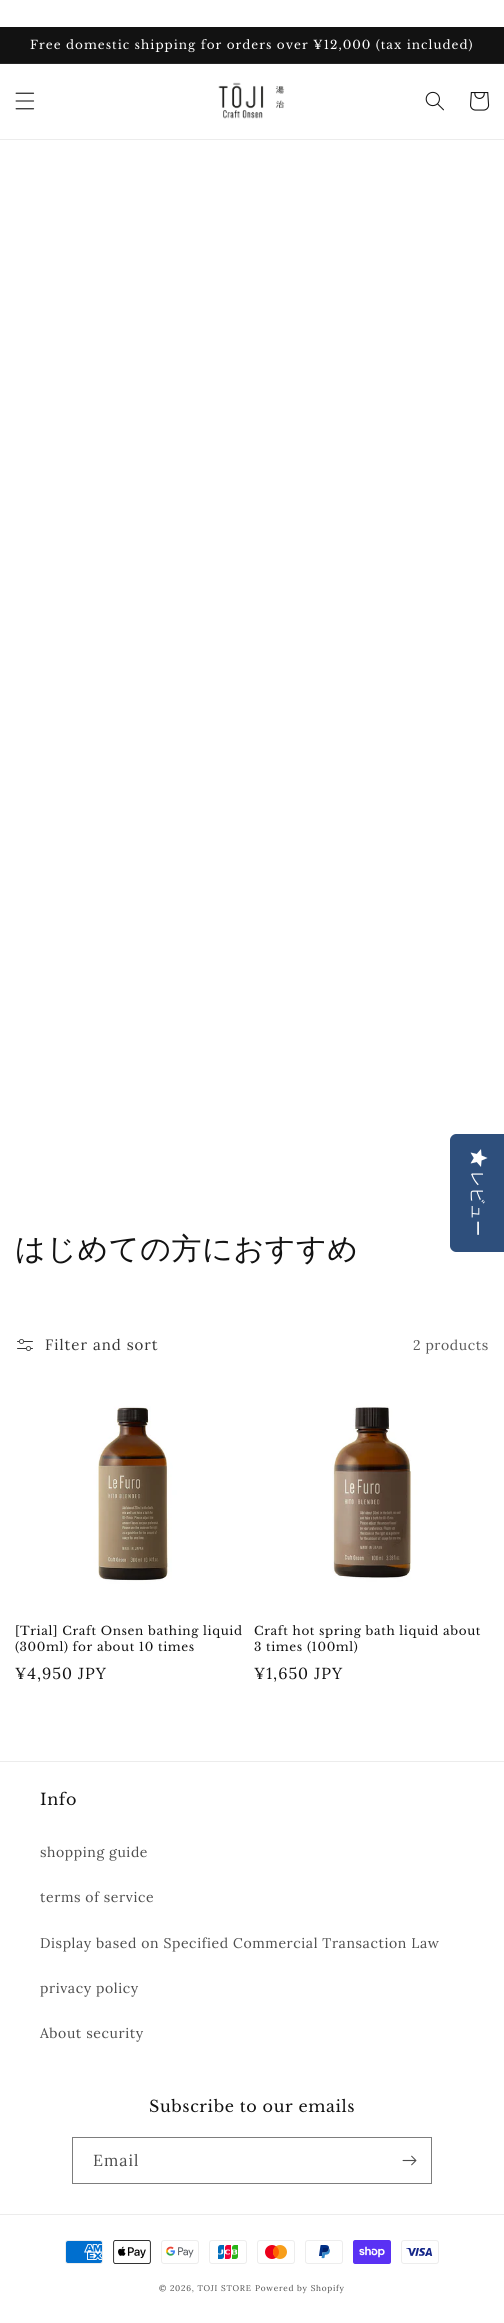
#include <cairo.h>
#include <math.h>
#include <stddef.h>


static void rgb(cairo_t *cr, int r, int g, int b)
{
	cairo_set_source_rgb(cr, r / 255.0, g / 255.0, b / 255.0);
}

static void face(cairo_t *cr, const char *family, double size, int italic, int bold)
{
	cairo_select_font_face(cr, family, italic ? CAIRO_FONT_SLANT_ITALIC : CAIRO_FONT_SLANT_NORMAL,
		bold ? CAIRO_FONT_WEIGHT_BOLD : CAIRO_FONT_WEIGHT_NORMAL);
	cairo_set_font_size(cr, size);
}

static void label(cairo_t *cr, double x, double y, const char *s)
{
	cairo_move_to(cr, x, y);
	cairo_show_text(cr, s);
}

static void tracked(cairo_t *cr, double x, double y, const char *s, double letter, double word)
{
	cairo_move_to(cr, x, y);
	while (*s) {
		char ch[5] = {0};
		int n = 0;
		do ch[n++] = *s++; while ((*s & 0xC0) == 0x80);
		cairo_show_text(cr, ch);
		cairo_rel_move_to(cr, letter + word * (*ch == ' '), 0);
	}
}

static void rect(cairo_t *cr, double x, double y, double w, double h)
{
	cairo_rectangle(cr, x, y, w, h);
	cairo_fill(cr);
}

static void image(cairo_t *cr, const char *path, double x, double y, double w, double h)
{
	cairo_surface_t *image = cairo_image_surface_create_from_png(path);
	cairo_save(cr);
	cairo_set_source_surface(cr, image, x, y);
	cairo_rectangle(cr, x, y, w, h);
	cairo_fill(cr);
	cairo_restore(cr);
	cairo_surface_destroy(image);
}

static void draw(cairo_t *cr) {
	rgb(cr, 255, 255, 255);
	cairo_paint(cr);
	rgb(cr, 18, 18, 18);
	rect(cr, 0, 27, 504, 36);
	rgb(cr, 37, 37, 37);
	rect(cr, 0, 63, 504, 1);
	face(cr, "Libre Baskerville", 12, 0, 0);
	rgb(cr, 255, 255, 255);
	tracked(cr, 30, 49, "Free domestic shipping for orders over ¥12,000 (tax included)", 1, 0);
	rgb(cr, 236, 236, 236);
	rect(cr, 0, 139, 504, 1);
	image(cr, "image0.png", 15, 92, 20, 18);
	image(cr, "image1.png", 218, 82, 67, 37);
	image(cr, "image2.png", 425, 91, 19, 20);
	image(cr, "image3.png", 470, 92, 20, 19);
	rgb(cr, 46, 79, 124);
	cairo_new_path(cr);
	cairo_move_to(cr, 504, 1134);
	cairo_line_to(cr, 504, 1252);
	cairo_line_to(cr, 456, 1252);
	cairo_curve_to(cr, 453, 1252, 450, 1249, 450, 1246);
	cairo_line_to(cr, 450, 1140);
	cairo_curve_to(cr, 450, 1137, 453, 1134, 456, 1134);
	cairo_close_path(cr);
	cairo_fill(cr);
	image(cr, "image4.png", 470, 1149, 18, 18);
	face(cr, "WenQuanYi Zen Hei Medium", 16, 0, 0);
	rgb(cr, 255, 255, 255);
	cairo_save(cr);
	cairo_translate(cr, 472, 1171);
	cairo_rotate(cr, 90 * M_PI / 180);
	label(cr, 0, 0, "レビュー");
	cairo_restore(cr);
	face(cr, "WenQuanYi Zen Hei Medium", 30, 0, 0);
	rgb(cr, 18, 18, 18);
	tracked(cr, 15, 1259, "はじめての方におすすめ", 0.6, 0);
	image(cr, "image5.png", 17, 1339, 16, 12);
	face(cr, "Lora", 15, 0, 0);
	rgb(cr, 54, 54, 54);
	tracked(cr, 45, 1350, "Filter and sort", 1, 0);
	face(cr, "Lora", 14, 0, 0);
	rgb(cr, 89, 89, 89);
	tracked(cr, 413, 1350, "2 products", 0.6, 0);
	image(cr, "image6.png", 15, 1375, 235, 235);
	face(cr, "Libre Baskerville", 12, 0, 0);
	rgb(cr, 18, 18, 18);
	tracked(cr, 15, 1635, "[Trial] Craft Onsen bathing liquid", 0.6, 0);
	tracked(cr, 15, 1651, "(300ml) for about 10 times", 0.6, 0);
	face(cr, "Lora", 16, 0, 0);
	tracked(cr, 15, 1679, "¥4,950 JPY", 1, 0);
	image(cr, "image7.png", 254, 1375, 235, 235);
	face(cr, "Libre Baskerville", 12, 0, 0);
	tracked(cr, 254, 1635, "Craft hot spring bath liquid about", 0.6, 0);
	tracked(cr, 254, 1651, "3 times (100ml)", 0.6, 0);
	face(cr, "Lora", 16, 0, 0);
	tracked(cr, 254, 1679, "¥1,650 JPY", 1, 0);
	rgb(cr, 236, 236, 236);
	rect(cr, 0, 1761, 504, 1);
	face(cr, "Libre Baskerville", 16, 0, 0);
	rgb(cr, 18, 18, 18);
	tracked(cr, 40, 1805, "Info", 0.6, 0);
	face(cr, "Lora", 14, 0, 0);
	rgb(cr, 77, 77, 77);
	tracked(cr, 40, 1857, "shopping guide", 0.6, 0);
	tracked(cr, 40, 1902, "terms of service", 0.6, 0);
	tracked(cr, 40, 1948, "Display based on Specified Commercial Transaction Law", 0.6, 0);
	tracked(cr, 40, 1993, "privacy policy", 0.6, 0);
	tracked(cr, 40, 2038, "About security", 0.6, 0);
	face(cr, "Libre Baskerville", 16, 0, 0);
	rgb(cr, 18, 18, 18);
	tracked(cr, 149, 2112, "Subscribe to our emails", 0.6, 0);
	cairo_rectangle(cr, 72.5, 2137.5, 359, 46);
	rgb(cr, 125, 125, 125);
	cairo_set_line_width(cr, 1);
	cairo_stroke(cr);
	face(cr, "Lora", 16, 0, 0);
	rgb(cr, 77, 77, 77);
	tracked(cr, 93, 2166, "Email", 1, 0);
	image(cr, "image8.png", 402, 2155, 15, 11);
	rgb(cr, 236, 236, 236);
	rect(cr, 0, 2214, 504, 1);
	image(cr, "image9.png", 65, 2240, 38, 24);
	image(cr, "image10.png", 113, 2240, 38, 24);
	image(cr, "image11.png", 161, 2240, 38, 24);
	image(cr, "image12.png", 209, 2240, 38, 24);
	image(cr, "image13.png", 257, 2240, 38, 24);
	image(cr, "image14.png", 305, 2240, 38, 24);
	image(cr, "image15.png", 353, 2240, 38, 24);
	image(cr, "image16.png", 401, 2240, 38, 24);
	face(cr, "Lora", 8.25, 0, 0);
	rgb(cr, 77, 77, 77);
	tracked(cr, 159, 2291, "© 2026, TOJI STORE", 0.75, 0);
	tracked(cr, 255, 2291, "Powered by Shopify", 0.75, 0);
}

int main(void) {
	cairo_surface_t *surface = cairo_image_surface_create(CAIRO_FORMAT_RGB24, 504, 2323);
	cairo_t *cr = cairo_create(surface);
	cairo_font_options_t *options = cairo_font_options_create();
	cairo_font_options_set_hint_metrics(options, CAIRO_HINT_METRICS_OFF);
	cairo_font_options_set_hint_style(options, CAIRO_HINT_STYLE_NONE);
	cairo_set_font_options(cr, options);
	cairo_set_miter_limit(cr, 4);
	draw(cr);
	cairo_surface_write_to_png(surface, "render.png");
	cairo_font_options_destroy(options);
	cairo_destroy(cr);
	cairo_surface_destroy(surface);
	return 0;
}
